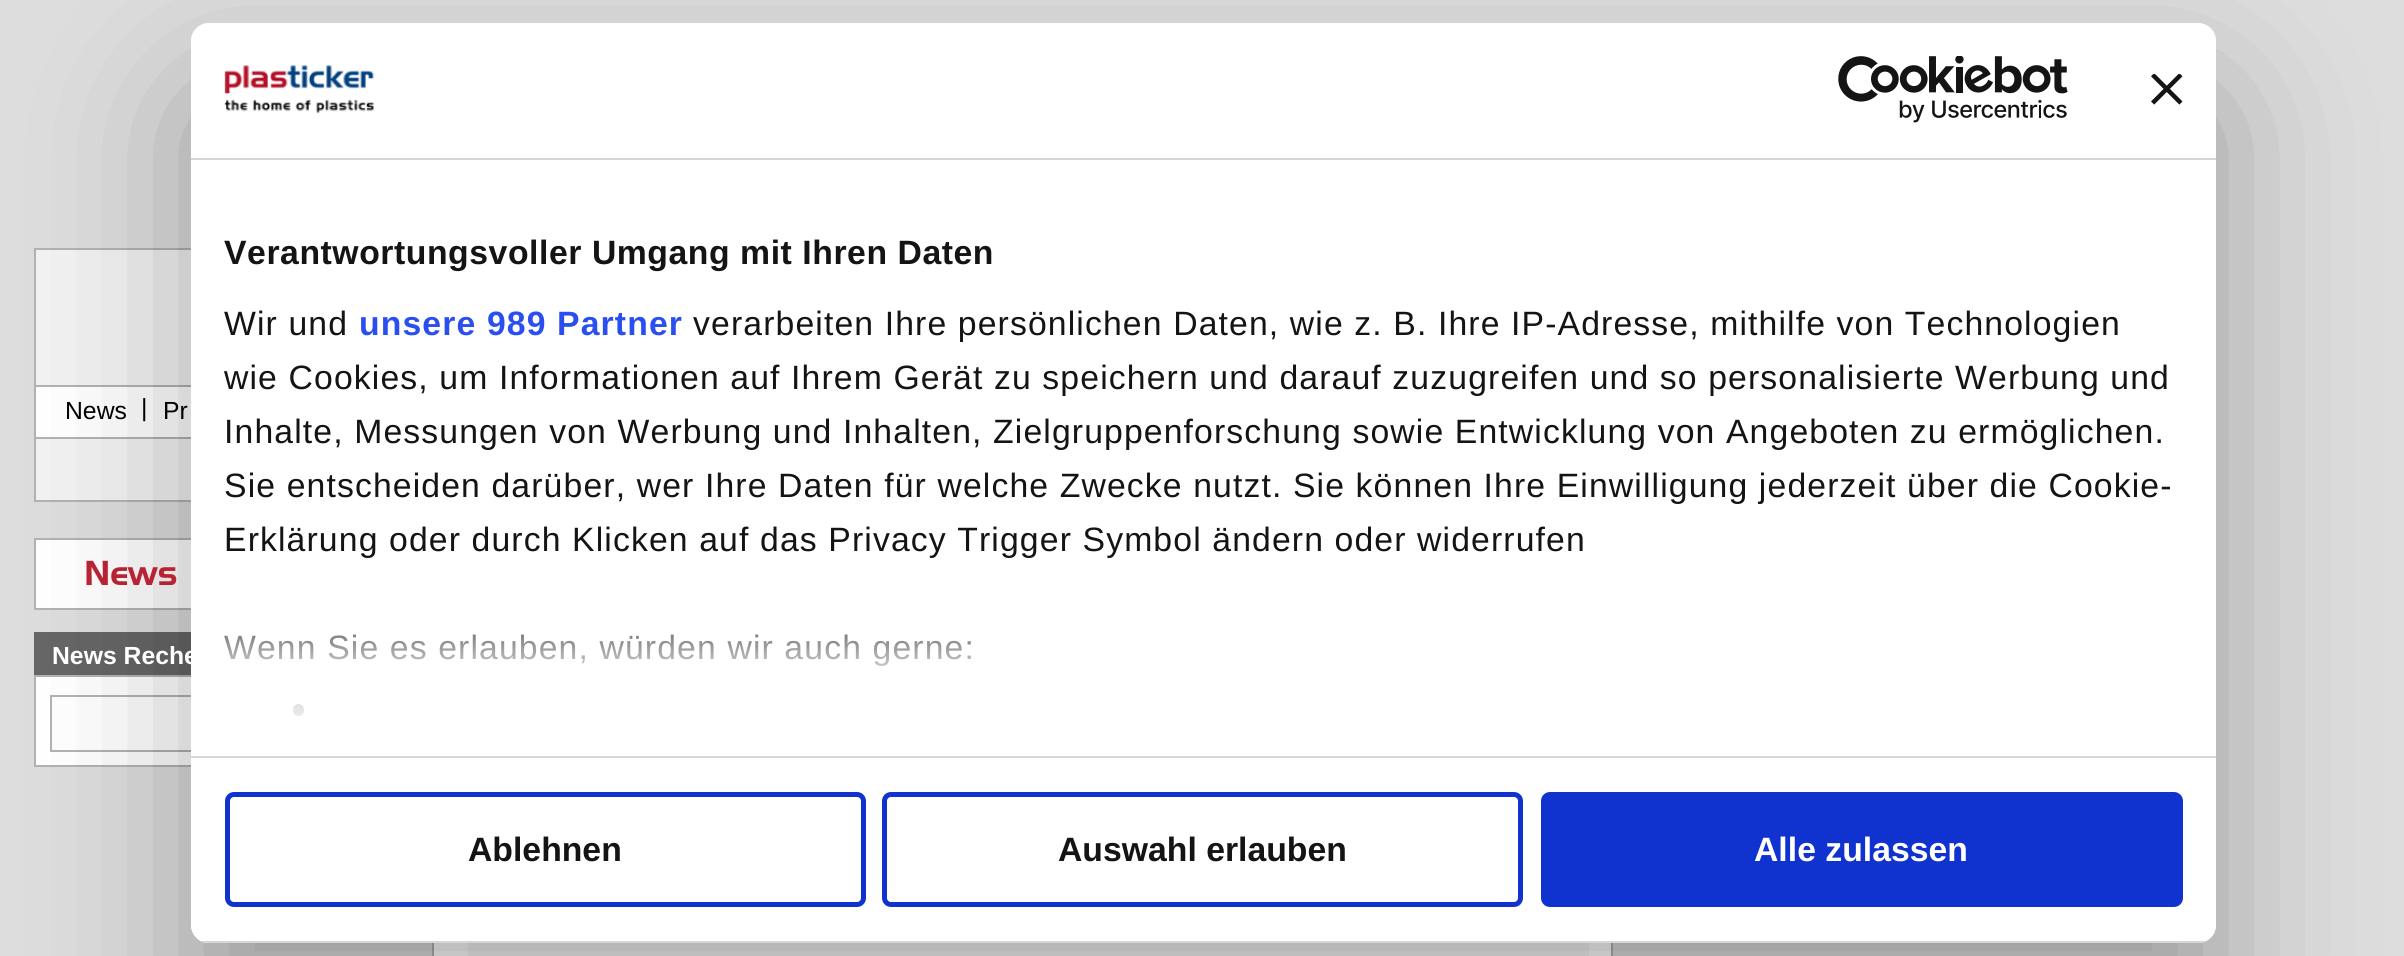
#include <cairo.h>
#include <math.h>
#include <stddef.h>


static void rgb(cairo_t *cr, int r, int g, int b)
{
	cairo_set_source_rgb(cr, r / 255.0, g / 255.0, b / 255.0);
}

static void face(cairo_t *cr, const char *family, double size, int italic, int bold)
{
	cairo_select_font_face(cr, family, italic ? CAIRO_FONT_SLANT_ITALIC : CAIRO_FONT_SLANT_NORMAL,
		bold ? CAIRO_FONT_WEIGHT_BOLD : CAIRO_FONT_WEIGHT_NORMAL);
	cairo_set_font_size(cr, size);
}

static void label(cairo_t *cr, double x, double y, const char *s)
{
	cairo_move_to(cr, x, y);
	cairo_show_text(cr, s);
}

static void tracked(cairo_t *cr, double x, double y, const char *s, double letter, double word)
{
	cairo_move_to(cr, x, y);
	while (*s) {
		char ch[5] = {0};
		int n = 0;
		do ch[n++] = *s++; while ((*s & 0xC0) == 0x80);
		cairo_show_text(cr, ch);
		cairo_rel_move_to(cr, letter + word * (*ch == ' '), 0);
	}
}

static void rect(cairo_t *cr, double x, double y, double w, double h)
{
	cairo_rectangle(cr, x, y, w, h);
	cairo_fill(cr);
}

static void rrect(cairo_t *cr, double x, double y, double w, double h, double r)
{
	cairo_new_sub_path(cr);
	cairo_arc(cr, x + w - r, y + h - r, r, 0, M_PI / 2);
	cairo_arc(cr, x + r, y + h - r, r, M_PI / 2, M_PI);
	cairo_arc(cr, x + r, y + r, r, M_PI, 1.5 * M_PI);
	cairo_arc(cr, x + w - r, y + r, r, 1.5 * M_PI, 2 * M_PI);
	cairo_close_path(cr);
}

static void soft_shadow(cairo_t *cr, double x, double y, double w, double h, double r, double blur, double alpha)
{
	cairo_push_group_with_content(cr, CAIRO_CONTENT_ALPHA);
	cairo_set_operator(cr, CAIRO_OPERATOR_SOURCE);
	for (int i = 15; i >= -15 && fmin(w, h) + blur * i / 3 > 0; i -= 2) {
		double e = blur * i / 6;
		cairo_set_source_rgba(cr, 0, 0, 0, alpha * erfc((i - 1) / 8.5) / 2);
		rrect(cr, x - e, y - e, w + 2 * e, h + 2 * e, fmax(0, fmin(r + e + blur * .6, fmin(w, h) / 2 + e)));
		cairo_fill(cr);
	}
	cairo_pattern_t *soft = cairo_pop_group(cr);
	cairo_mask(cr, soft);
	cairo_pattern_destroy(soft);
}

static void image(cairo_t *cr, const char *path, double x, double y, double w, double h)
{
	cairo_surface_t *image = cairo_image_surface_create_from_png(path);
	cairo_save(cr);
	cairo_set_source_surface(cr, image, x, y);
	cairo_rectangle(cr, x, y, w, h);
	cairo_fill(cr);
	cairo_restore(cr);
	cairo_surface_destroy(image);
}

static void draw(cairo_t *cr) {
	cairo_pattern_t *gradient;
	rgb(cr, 221, 221, 221);
	cairo_paint(cr);
	rgb(cr, 242, 242, 242);
	rect(cr, 36, 250, 155, 250);
	cairo_rectangle(cr, 35, 249, 2165, 252);
	rgb(cr, 178, 178, 178);
	cairo_stroke(cr);
	rgb(cr, 255, 255, 255);
	rect(cr, 36, 387, 155, 50);
	cairo_rectangle(cr, 35, 386, 2165, 52);
	rgb(cr, 178, 178, 178);
	cairo_stroke(cr);
	face(cr, "Liberation Sans", 24.75, 0, 0);
	rgb(cr, 0, 0, 0);
	label(cr, 65, 419, "News");
	label(cr, 141, 416, "|");
	label(cr, 163, 419, "Pr");
	rgb(cr, 255, 255, 255);
	rect(cr, 36, 540, 155, 68);
	cairo_rectangle(cr, 35, 539, 362, 70);
	rgb(cr, 178, 178, 178);
	cairo_stroke(cr);
	rgb(cr, 102, 102, 102);
	rect(cr, 34, 632, 157, 43);
	rgb(cr, 255, 255, 255);
	rect(cr, 36, 677, 155, 88);
	rgb(cr, 178, 178, 178);
	rect(cr, 34, 675, 157, 2);
	rect(cr, 34, 765, 157, 2);
	rect(cr, 34, 675, 2, 92);
	cairo_rectangle(cr, 51, 696, 270, 55);
	cairo_stroke(cr);
	rgb(cr, 255, 255, 255);
	rect(cr, 434, 943, 1177, 13);
	cairo_rectangle(cr, 433, 539, 1179, 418);
	rgb(cr, 178, 178, 178);
	cairo_stroke(cr);
	rgb(cr, 245, 245, 245);
	rect(cr, 468, 943, 1121, 13);
	cairo_save(cr);
	cairo_set_fill_rule(cr, CAIRO_FILL_RULE_EVEN_ODD);
	cairo_new_path(cr);
	cairo_move_to(cr, 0, 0);
	cairo_line_to(cr, 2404, 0);
	cairo_line_to(cr, 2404, 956);
	cairo_line_to(cr, 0, 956);
	cairo_close_path(cr);
	cairo_move_to(cr, 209, 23);
	cairo_line_to(cr, 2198, 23);
	cairo_curve_to(cr, 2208, 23, 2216, 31, 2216, 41);
	cairo_line_to(cr, 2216, 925);
	cairo_curve_to(cr, 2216, 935, 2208, 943, 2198, 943);
	cairo_line_to(cr, 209, 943);
	cairo_curve_to(cr, 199, 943, 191, 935, 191, 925);
	cairo_line_to(cr, 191, 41);
	cairo_curve_to(cr, 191, 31, 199, 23, 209, 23);
	cairo_close_path(cr);
	cairo_clip(cr);
	rgb(cr, 0, 0, 0);
	soft_shadow(cr, 191, 95, 2025, 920, 18, 76.5, 0.3);
	cairo_restore(cr);
	rgb(cr, 255, 255, 255);
	rrect(cr, 191, 23, 2025, 920, 18);
	cairo_fill(cr);
	rgb(cr, 214, 214, 214);
	rect(cr, 191, 158, 2025, 2);
	image(cr, "image0.png", 224, 65, 150, 49);
	image(cr, "image1.png", 1838, 56, 230, 67);
	image(cr, "image2.png", 2151, 74, 32, 31);
	rect(cr, 191, 756, 2025, 2);
	face(cr, "Liberation Sans", 33.75, 0, 1);
	rgb(cr, 20, 20, 20);
	tracked(cr, 224, 264, "Verantwortungsvoller Umgang mit Ihren Daten", 0.55, 0);
	face(cr, "Liberation Sans", 33.75, 0, 0);
	tracked(cr, 224, 335, "Wir und", 1.12, 0);
	face(cr, "Liberation Sans", 33.75, 0, 1);
	rgb(cr, 42, 78, 239);
	tracked(cr, 359, 335, "unsere 989 Partner", 1.12, 0);
	face(cr, "Liberation Sans", 33.75, 0, 0);
	rgb(cr, 20, 20, 20);
	tracked(cr, 693, 335, "verarbeiten Ihre persönlichen Daten, wie z. B. Ihre IP-Adresse, mithilfe von Technologien", 1.12, 0);
	tracked(cr, 224, 389, "wie Cookies, um Informationen auf Ihrem Gerät zu speichern und darauf zuzugreifen und so personalisierte Werbung und", 1.12, 0);
	tracked(cr, 224, 443, "Inhalte, Messungen von Werbung und Inhalten, Zielgruppenforschung sowie Entwicklung von Angeboten zu ermöglichen.", 1.12, 0);
	tracked(cr, 224, 497, "Sie entscheiden darüber, wer Ihre Daten für welche Zwecke nutzt. Sie können Ihre Einwilligung jederzeit über die Cookie-", 1.12, 0);
	tracked(cr, 224, 551, "Erklärung oder durch Klicken auf das Privacy Trigger Symbol ändern oder widerrufen", 1.12, 0);
	tracked(cr, 224, 659, "Wenn Sie es erlauben, würden wir auch gerne:", 1.12, 0);
	rrect(cr, 293, 704, 11, 12, 5.5);
	cairo_fill(cr);
	gradient = cairo_pattern_create_linear(1189, 755, 1189, 586);
	cairo_pattern_add_color_stop_rgba(gradient, 0, 1, 1, 1, 1);
	cairo_pattern_add_color_stop_rgba(gradient, 0.5, 1, 1, 1, 0.8);
	cairo_pattern_add_color_stop_rgba(gradient, 1, 1, 1, 1, 0);
	cairo_set_source(cr, gradient);
	cairo_pattern_destroy(gradient);
	rect(cr, 224, 634, 747, 82);
	cairo_save(cr);
	rrect(cr, 191, 23, 2025, 920, 18);
	cairo_clip(cr);
	rgb(cr, 214, 214, 214);
	rect(cr, 201, 941, 2005, 2);
	cairo_restore(cr);
	rrect(cr, 227.5, 794.5, 636, 110, 6.5);
	rgb(cr, 16, 50, 207);
	cairo_set_line_width(cr, 5);
	cairo_stroke(cr);
	face(cr, "Liberation Sans", 33.75, 0, 1);
	rgb(cr, 20, 20, 20);
	label(cr, 468, 861, "Ablehnen");
	rrect(cr, 884.5, 794.5, 636, 110, 6.5);
	rgb(cr, 16, 50, 207);
	cairo_stroke(cr);
	rgb(cr, 20, 20, 20);
	label(cr, 1058, 861, "Auswahl erlauben");
	rgb(cr, 16, 50, 207);
	rrect(cr, 1543.5, 794.5, 637, 110, 6.5);
	cairo_fill_preserve(cr);
	cairo_stroke(cr);
	rgb(cr, 255, 255, 255);
	label(cr, 1754, 861, "Alle zulassen");
	face(cr, "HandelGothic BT", 33.75, 0, 0);
	rgb(cr, 183, 35, 50);
	label(cr, 84, 585, "News");
	face(cr, "Liberation Sans", 24.75, 0, 1);
	rgb(cr, 255, 255, 255);
	label(cr, 52, 664, "News Reche");
}

int main(void) {
	cairo_surface_t *surface = cairo_image_surface_create(CAIRO_FORMAT_RGB24, 2404, 956);
	cairo_t *cr = cairo_create(surface);
	cairo_font_options_t *options = cairo_font_options_create();
	cairo_font_options_set_hint_metrics(options, CAIRO_HINT_METRICS_OFF);
	cairo_font_options_set_hint_style(options, CAIRO_HINT_STYLE_NONE);
	cairo_set_font_options(cr, options);
	cairo_set_miter_limit(cr, 4);
	draw(cr);
	cairo_surface_write_to_png(surface, "render.png");
	cairo_font_options_destroy(options);
	cairo_destroy(cr);
	cairo_surface_destroy(surface);
	return 0;
}
